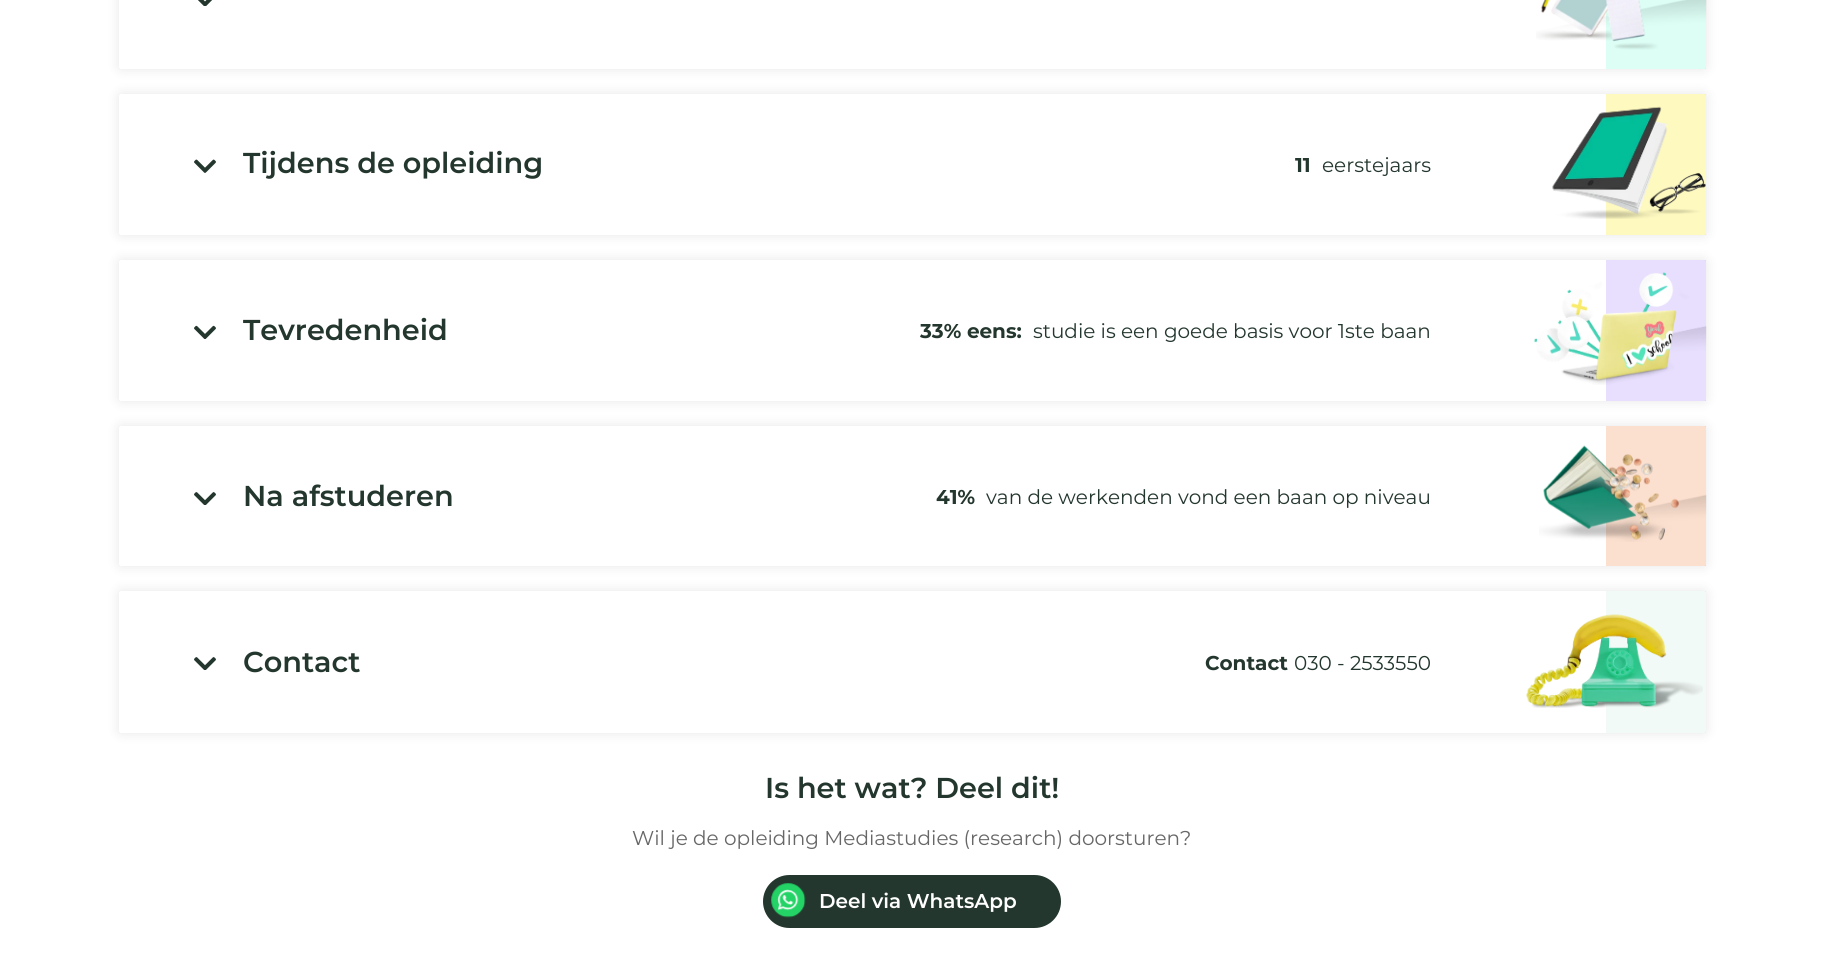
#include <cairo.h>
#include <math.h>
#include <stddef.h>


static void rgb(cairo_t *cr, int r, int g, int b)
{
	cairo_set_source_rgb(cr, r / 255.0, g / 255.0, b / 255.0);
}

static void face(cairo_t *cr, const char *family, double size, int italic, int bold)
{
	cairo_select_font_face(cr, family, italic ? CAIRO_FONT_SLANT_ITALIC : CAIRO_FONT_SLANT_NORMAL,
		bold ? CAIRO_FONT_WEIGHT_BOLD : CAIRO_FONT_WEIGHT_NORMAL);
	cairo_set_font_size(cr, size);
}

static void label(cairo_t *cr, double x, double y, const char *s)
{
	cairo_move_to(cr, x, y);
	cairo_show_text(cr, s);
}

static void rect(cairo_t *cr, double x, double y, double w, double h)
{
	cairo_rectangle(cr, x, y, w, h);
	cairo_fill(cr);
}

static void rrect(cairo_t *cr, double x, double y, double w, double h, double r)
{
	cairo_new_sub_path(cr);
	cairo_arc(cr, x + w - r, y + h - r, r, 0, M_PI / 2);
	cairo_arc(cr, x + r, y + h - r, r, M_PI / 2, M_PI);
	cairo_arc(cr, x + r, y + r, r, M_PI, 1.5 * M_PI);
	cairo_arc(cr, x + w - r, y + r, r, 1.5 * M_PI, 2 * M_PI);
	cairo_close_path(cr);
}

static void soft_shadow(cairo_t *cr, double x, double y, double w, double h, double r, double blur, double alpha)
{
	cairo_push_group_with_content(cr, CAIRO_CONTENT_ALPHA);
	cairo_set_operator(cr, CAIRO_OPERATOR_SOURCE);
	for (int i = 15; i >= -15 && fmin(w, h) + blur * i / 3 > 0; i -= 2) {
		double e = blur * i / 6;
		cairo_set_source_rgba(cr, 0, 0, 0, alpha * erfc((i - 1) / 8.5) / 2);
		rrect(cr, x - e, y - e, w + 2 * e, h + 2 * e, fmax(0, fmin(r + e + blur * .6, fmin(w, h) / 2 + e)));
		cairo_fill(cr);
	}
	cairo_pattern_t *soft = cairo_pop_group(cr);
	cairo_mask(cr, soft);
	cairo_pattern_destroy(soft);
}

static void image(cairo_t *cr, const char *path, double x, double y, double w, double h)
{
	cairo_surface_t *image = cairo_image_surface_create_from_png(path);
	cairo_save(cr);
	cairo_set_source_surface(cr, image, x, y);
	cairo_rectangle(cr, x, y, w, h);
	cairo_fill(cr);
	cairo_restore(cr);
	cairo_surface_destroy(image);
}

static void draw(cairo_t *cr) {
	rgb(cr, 255, 255, 255);
	cairo_paint(cr);
	rgb(cr, 220, 254, 244);
	rect(cr, 1606, 0, 100, 69);
	cairo_save(cr);
	cairo_set_fill_rule(cr, CAIRO_FILL_RULE_EVEN_ODD);
	cairo_new_path(cr);
	cairo_move_to(cr, 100, 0);
	cairo_line_to(cr, 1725, 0);
	cairo_line_to(cr, 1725, 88);
	cairo_line_to(cr, 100, 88);
	cairo_close_path(cr);
	cairo_move_to(cr, 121.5, -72);
	cairo_line_to(cr, 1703.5, -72);
	cairo_curve_to(cr, 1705, -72, 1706, -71, 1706, -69.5);
	cairo_line_to(cr, 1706, 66.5);
	cairo_curve_to(cr, 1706, 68, 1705, 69, 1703.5, 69);
	cairo_line_to(cr, 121.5, 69);
	cairo_curve_to(cr, 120, 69, 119, 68, 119, 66.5);
	cairo_line_to(cr, 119, -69.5);
	cairo_curve_to(cr, 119, -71, 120, -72, 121.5, -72);
	cairo_close_path(cr);
	cairo_clip(cr);
	rgb(cr, 0, 0, 0);
	soft_shadow(cr, 119, -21, 1587, 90, 2.5, 6, 0.1);
	cairo_restore(cr);
	image(cr, "image0.png", 198, 0, 14, 6);
	image(cr, "image1.png", 1536, 0, 171, 50);
	rgb(cr, 254, 249, 191);
	rect(cr, 1606, 94, 100, 141);
	cairo_save(cr);
	cairo_set_fill_rule(cr, CAIRO_FILL_RULE_EVEN_ODD);
	cairo_new_path(cr);
	cairo_move_to(cr, 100, 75);
	cairo_line_to(cr, 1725, 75);
	cairo_line_to(cr, 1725, 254);
	cairo_line_to(cr, 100, 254);
	cairo_close_path(cr);
	cairo_move_to(cr, 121.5, 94);
	cairo_line_to(cr, 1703.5, 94);
	cairo_curve_to(cr, 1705, 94, 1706, 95, 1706, 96.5);
	cairo_line_to(cr, 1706, 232.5);
	cairo_curve_to(cr, 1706, 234, 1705, 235, 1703.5, 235);
	cairo_line_to(cr, 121.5, 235);
	cairo_curve_to(cr, 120, 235, 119, 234, 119, 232.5);
	cairo_line_to(cr, 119, 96.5);
	cairo_curve_to(cr, 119, 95, 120, 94, 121.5, 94);
	cairo_close_path(cr);
	cairo_clip(cr);
	rgb(cr, 0, 0, 0);
	soft_shadow(cr, 119, 94, 1587, 141, 2.5, 6, 0.1);
	cairo_restore(cr);
	image(cr, "image2.png", 194, 159, 22, 14);
	face(cr, "Montserrat SemiBold", 28.75, 0, 0);
	rgb(cr, 36, 55, 46);
	label(cr, 243, 173, "Tijdens de opleiding");
	face(cr, "Montserrat", 20, 0, 1);
	label(cr, 1295, 172, "11");
	face(cr, "Montserrat", 20, 0, 0);
	label(cr, 1322, 172, "eerstejaars");
	image(cr, "image3.png", 1552, 106, 154, 113);
	rgb(cr, 232, 223, 255);
	rect(cr, 1606, 260, 100, 141);
	cairo_save(cr);
	cairo_set_fill_rule(cr, CAIRO_FILL_RULE_EVEN_ODD);
	cairo_new_path(cr);
	cairo_move_to(cr, 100, 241);
	cairo_line_to(cr, 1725, 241);
	cairo_line_to(cr, 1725, 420);
	cairo_line_to(cr, 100, 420);
	cairo_close_path(cr);
	cairo_move_to(cr, 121.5, 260);
	cairo_line_to(cr, 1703.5, 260);
	cairo_curve_to(cr, 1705, 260, 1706, 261, 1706, 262.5);
	cairo_line_to(cr, 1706, 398.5);
	cairo_curve_to(cr, 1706, 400, 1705, 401, 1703.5, 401);
	cairo_line_to(cr, 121.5, 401);
	cairo_curve_to(cr, 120, 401, 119, 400, 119, 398.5);
	cairo_line_to(cr, 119, 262.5);
	cairo_curve_to(cr, 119, 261, 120, 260, 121.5, 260);
	cairo_close_path(cr);
	cairo_clip(cr);
	rgb(cr, 0, 0, 0);
	soft_shadow(cr, 119, 260, 1587, 141, 2.5, 6, 0.1);
	cairo_restore(cr);
	image(cr, "image4.png", 194, 325, 22, 14);
	face(cr, "Montserrat SemiBold", 28.75, 0, 0);
	rgb(cr, 36, 55, 46);
	label(cr, 243, 340, "Tevredenheid");
	face(cr, "Montserrat", 20, 0, 1);
	label(cr, 920, 338, "33% eens:");
	face(cr, "Montserrat", 20, 0, 0);
	label(cr, 1033, 338, "studie is een goede basis voor 1ste baan");
	image(cr, "image5.png", 1533, 272, 174, 113);
	rgb(cr, 252, 224, 207);
	rect(cr, 1606, 426, 100, 140);
	cairo_save(cr);
	cairo_set_fill_rule(cr, CAIRO_FILL_RULE_EVEN_ODD);
	cairo_new_path(cr);
	cairo_move_to(cr, 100, 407);
	cairo_line_to(cr, 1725, 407);
	cairo_line_to(cr, 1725, 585);
	cairo_line_to(cr, 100, 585);
	cairo_close_path(cr);
	cairo_move_to(cr, 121.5, 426);
	cairo_line_to(cr, 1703.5, 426);
	cairo_curve_to(cr, 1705, 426, 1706, 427, 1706, 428.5);
	cairo_line_to(cr, 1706, 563.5);
	cairo_curve_to(cr, 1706, 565, 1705, 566, 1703.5, 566);
	cairo_line_to(cr, 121.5, 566);
	cairo_curve_to(cr, 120, 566, 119, 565, 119, 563.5);
	cairo_line_to(cr, 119, 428.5);
	cairo_curve_to(cr, 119, 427, 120, 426, 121.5, 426);
	cairo_close_path(cr);
	cairo_clip(cr);
	rgb(cr, 0, 0, 0);
	soft_shadow(cr, 119, 426, 1587, 140, 2.5, 6, 0.1);
	cairo_restore(cr);
	image(cr, "image6.png", 194, 492, 22, 13);
	face(cr, "Montserrat SemiBold", 28.75, 0, 0);
	rgb(cr, 36, 55, 46);
	label(cr, 243, 506, "Na afstuderen");
	face(cr, "Montserrat", 20, 0, 1);
	label(cr, 936, 504, "41%");
	face(cr, "Montserrat", 20, 0, 0);
	label(cr, 986, 504, "van de werkenden vond een baan op niveau");
	image(cr, "image7.png", 1539, 445, 168, 97);
	rgb(cr, 242, 250, 248);
	rect(cr, 1606, 591, 100, 142);
	cairo_save(cr);
	cairo_set_fill_rule(cr, CAIRO_FILL_RULE_EVEN_ODD);
	cairo_new_path(cr);
	cairo_move_to(cr, 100, 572);
	cairo_line_to(cr, 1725, 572);
	cairo_line_to(cr, 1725, 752);
	cairo_line_to(cr, 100, 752);
	cairo_close_path(cr);
	cairo_move_to(cr, 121.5, 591);
	cairo_line_to(cr, 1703.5, 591);
	cairo_curve_to(cr, 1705, 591, 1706, 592, 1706, 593.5);
	cairo_line_to(cr, 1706, 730.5);
	cairo_curve_to(cr, 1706, 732, 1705, 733, 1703.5, 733);
	cairo_line_to(cr, 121.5, 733);
	cairo_curve_to(cr, 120, 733, 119, 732, 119, 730.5);
	cairo_line_to(cr, 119, 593.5);
	cairo_curve_to(cr, 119, 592, 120, 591, 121.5, 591);
	cairo_close_path(cr);
	cairo_clip(cr);
	rgb(cr, 0, 0, 0);
	soft_shadow(cr, 119, 591, 1587, 142, 2.5, 6, 0.1);
	cairo_restore(cr);
	image(cr, "image6.png", 194, 657, 22, 13);
	face(cr, "Montserrat SemiBold", 28.75, 0, 0);
	rgb(cr, 36, 55, 46);
	label(cr, 243, 672, "Contact");
	face(cr, "Montserrat", 20, 0, 1);
	label(cr, 1205, 670, "Contact");
	face(cr, "Montserrat", 20, 0, 0);
	label(cr, 1294, 670, "030 - 2533550");
	image(cr, "image8.png", 1526, 614, 177, 94);
	face(cr, "Montserrat SemiBold", 28.75, 0, 0);
	label(cr, 765, 798, "Is het wat? Deel dit!");
	face(cr, "Montserrat", 20, 0, 0);
	rgb(cr, 103, 103, 103);
	label(cr, 632, 845, "Wil je de opleiding Mediastudies (research) doorsturen?");
	rgb(cr, 36, 55, 46);
	rrect(cr, 763, 875, 298, 53, 26.5);
	cairo_fill(cr);
	image(cr, "image9.png", 771, 883, 35, 35);
	face(cr, "Montserrat SemiBold", 20, 0, 0);
	rgb(cr, 255, 255, 255);
	label(cr, 819, 908, "Deel via WhatsApp");
}

int main(void) {
	cairo_surface_t *surface = cairo_image_surface_create(CAIRO_FORMAT_RGB24, 1823, 955);
	cairo_t *cr = cairo_create(surface);
	cairo_font_options_t *options = cairo_font_options_create();
	cairo_font_options_set_hint_metrics(options, CAIRO_HINT_METRICS_OFF);
	cairo_font_options_set_hint_style(options, CAIRO_HINT_STYLE_NONE);
	cairo_set_font_options(cr, options);
	cairo_set_miter_limit(cr, 4);
	draw(cr);
	cairo_surface_write_to_png(surface, "render.png");
	cairo_font_options_destroy(options);
	cairo_destroy(cr);
	cairo_surface_destroy(surface);
	return 0;
}
